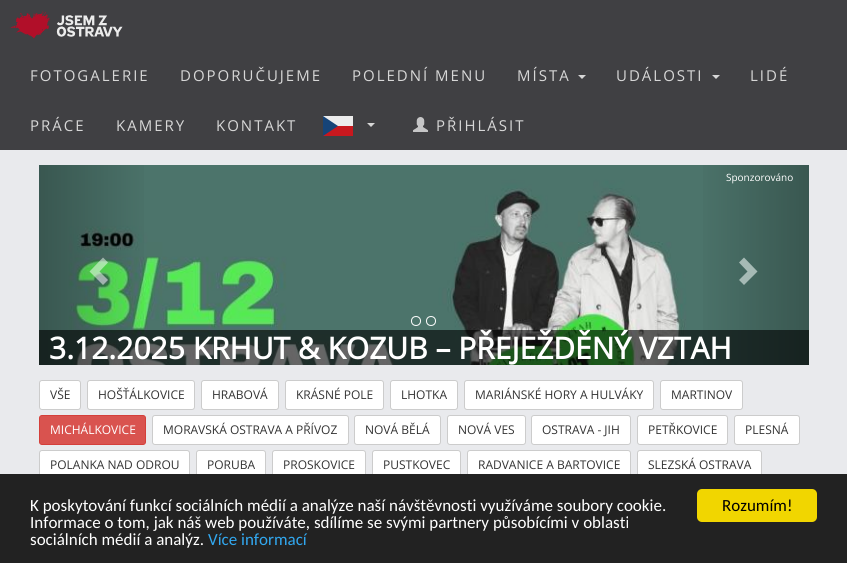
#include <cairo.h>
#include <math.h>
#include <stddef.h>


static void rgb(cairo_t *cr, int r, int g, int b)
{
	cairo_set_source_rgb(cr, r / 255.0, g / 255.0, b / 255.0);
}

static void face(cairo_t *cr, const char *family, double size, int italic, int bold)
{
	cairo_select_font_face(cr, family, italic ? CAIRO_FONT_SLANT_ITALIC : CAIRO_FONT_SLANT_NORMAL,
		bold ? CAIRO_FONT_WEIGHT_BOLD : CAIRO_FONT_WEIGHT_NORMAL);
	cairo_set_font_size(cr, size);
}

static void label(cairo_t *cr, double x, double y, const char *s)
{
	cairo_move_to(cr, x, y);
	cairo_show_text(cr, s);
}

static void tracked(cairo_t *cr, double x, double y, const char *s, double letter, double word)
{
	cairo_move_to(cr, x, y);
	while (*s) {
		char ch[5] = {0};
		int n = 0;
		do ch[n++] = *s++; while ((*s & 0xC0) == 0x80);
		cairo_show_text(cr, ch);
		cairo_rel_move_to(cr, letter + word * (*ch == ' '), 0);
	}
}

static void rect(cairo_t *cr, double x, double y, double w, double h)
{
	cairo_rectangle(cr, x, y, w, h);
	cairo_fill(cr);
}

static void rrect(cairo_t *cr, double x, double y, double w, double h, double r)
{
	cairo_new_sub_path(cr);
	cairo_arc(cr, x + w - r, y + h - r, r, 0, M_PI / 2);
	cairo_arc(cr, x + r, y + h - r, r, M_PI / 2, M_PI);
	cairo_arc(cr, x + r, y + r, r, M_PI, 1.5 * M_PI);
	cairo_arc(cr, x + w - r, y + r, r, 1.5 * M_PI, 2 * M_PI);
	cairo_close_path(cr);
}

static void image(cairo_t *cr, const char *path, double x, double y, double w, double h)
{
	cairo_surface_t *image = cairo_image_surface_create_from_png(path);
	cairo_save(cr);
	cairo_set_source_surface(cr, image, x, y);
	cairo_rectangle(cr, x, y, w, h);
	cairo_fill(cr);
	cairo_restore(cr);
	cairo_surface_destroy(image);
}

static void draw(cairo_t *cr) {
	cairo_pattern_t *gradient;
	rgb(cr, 233, 234, 237);
	cairo_paint(cr);
	rgb(cr, 64, 64, 67);
	rect(cr, 0, 0, 847, 150);
	image(cr, "image0.png", 9, 10, 114, 29);
	face(cr, "Open Sans", 15, 0, 0);
	rgb(cr, 215, 215, 215);
	tracked(cr, 30, 81, "FOTOGALERIE", 2, 0);
	tracked(cr, 180, 81, "DOPORUČUJEME", 2, 0);
	tracked(cr, 352, 81, "POLEDNÍ MENU", 2, 0);
	tracked(cr, 517, 81, "MÍSTA", 2, 0);
	cairo_new_path(cr);
	cairo_move_to(cr, 578, 75);
	cairo_line_to(cr, 586, 75);
	cairo_line_to(cr, 582, 79);
	cairo_close_path(cr);
	cairo_fill(cr);
	tracked(cr, 616, 81, "UDÁLOSTI", 2, 0);
	cairo_new_path(cr);
	cairo_move_to(cr, 712, 75);
	cairo_line_to(cr, 720, 75);
	cairo_line_to(cr, 716, 79);
	cairo_close_path(cr);
	cairo_fill(cr);
	tracked(cr, 750, 81, "LIDÉ", 2, 0);
	tracked(cr, 30, 131, "PRÁCE", 2, 0);
	tracked(cr, 116, 131, "KAMERY", 2, 0);
	tracked(cr, 216, 131, "KONTAKT", 2, 0);
	image(cr, "image1.png", 323, 116, 30, 20);
	cairo_new_path(cr);
	cairo_move_to(cr, 367, 123);
	cairo_line_to(cr, 375, 123);
	cairo_line_to(cr, 371, 127);
	cairo_close_path(cr);
	cairo_fill(cr);
	image(cr, "image2.png", 413, 117, 15, 15);
	tracked(cr, 436, 131, "PŘIHLÁSIT", 2, 0);
	image(cr, "image3.png", 39, 165, 770, 200);
	cairo_set_source_rgba(cr, 0, 0, 0, 0.6);
	rect(cr, 39, 330, 770, 35);
	gradient = cairo_pattern_create_linear(693, 265, 809, 265);
	cairo_pattern_add_color_stop_rgba(gradient, 0, 0, 0, 0, 0);
	cairo_pattern_add_color_stop_rgba(gradient, 1, 0, 0, 0, 0.25);
	cairo_set_source(cr, gradient);
	cairo_pattern_destroy(gradient);
	rect(cr, 703, 165, 106, 200);
	face(cr, "Open Sans", 10, 0, 0);
	rgb(cr, 255, 255, 255);
	label(cr, 726, 181, "Sponzorováno");
	gradient = cairo_pattern_create_linear(39, 265, 154, 265);
	cairo_pattern_add_color_stop_rgba(gradient, 0, 0, 0, 0, 0.25);
	cairo_pattern_add_color_stop_rgba(gradient, 1, 0, 0, 0, 0);
	cairo_set_source(cr, gradient);
	cairo_pattern_destroy(gradient);
	rect(cr, 39, 165, 105, 200);
	cairo_set_source_rgba(cr, 1, 1, 1, 0.5);
	cairo_new_path(cr);
	cairo_move_to(cr, 108, 262.5);
	cairo_line_to(cr, 99.5, 271.5);
	cairo_line_to(cr, 108, 280);
	cairo_line_to(cr, 103, 285);
	cairo_line_to(cr, 89.5, 271.5);
	cairo_line_to(cr, 103, 257.5);
	cairo_close_path(cr);
	cairo_fill(cr);
	cairo_arc(cr, 416, 321, 4.5, 0, 2 * M_PI);
	rgb(cr, 255, 255, 255);
	cairo_set_line_width(cr, 1);
	cairo_stroke(cr);
	cairo_arc(cr, 431, 321, 4.5, 0, 2 * M_PI);
	cairo_stroke(cr);
	rgb(cr, 166, 186, 181);
	cairo_new_path(cr);
	cairo_move_to(cr, 757.5, 271.5);
	cairo_line_to(cr, 744, 285);
	cairo_line_to(cr, 739, 280);
	cairo_line_to(cr, 747.5, 271.5);
	cairo_line_to(cr, 739, 262.5);
	cairo_line_to(cr, 744, 257.5);
	cairo_close_path(cr);
	cairo_fill(cr);
	face(cr, "Open Sans", 30, 0, 1);
	rgb(cr, 255, 255, 255);
	label(cr, 49, 359, "3.12.2025 KRHUT & KOZUB – PŘEJEŽDĚNÝ VZTAH");
	rrect(cr, 39.5, 380.5, 41, 29, 2.5);
	cairo_fill_preserve(cr);
	rgb(cr, 204, 204, 204);
	cairo_stroke(cr);
	face(cr, "Open Sans", 12, 0, 0);
	rgb(cr, 51, 51, 51);
	label(cr, 50, 399, "VŠE");
	rgb(cr, 255, 255, 255);
	rrect(cr, 87.5, 380.5, 107, 29, 2.5);
	cairo_fill_preserve(cr);
	rgb(cr, 204, 204, 204);
	cairo_stroke(cr);
	rgb(cr, 51, 51, 51);
	label(cr, 98, 399, "HOŠŤÁLKOVICE");
	rgb(cr, 255, 255, 255);
	rrect(cr, 201.5, 380.5, 77, 29, 2.5);
	cairo_fill_preserve(cr);
	rgb(cr, 204, 204, 204);
	cairo_stroke(cr);
	rgb(cr, 51, 51, 51);
	label(cr, 212, 399, "HRABOVÁ");
	rgb(cr, 255, 255, 255);
	rrect(cr, 285.5, 380.5, 98, 29, 2.5);
	cairo_fill_preserve(cr);
	rgb(cr, 204, 204, 204);
	cairo_stroke(cr);
	rgb(cr, 51, 51, 51);
	label(cr, 296, 399, "KRÁSNÉ POLE");
	rgb(cr, 255, 255, 255);
	rrect(cr, 390.5, 380.5, 67, 29, 2.5);
	cairo_fill_preserve(cr);
	rgb(cr, 204, 204, 204);
	cairo_stroke(cr);
	rgb(cr, 51, 51, 51);
	label(cr, 401, 399, "LHOTKA");
	rgb(cr, 255, 255, 255);
	rrect(cr, 464.5, 380.5, 189, 29, 2.5);
	cairo_fill_preserve(cr);
	rgb(cr, 204, 204, 204);
	cairo_stroke(cr);
	rgb(cr, 51, 51, 51);
	label(cr, 475, 399, "MARIÁNSKÉ HORY A HULVÁKY");
	rgb(cr, 255, 255, 255);
	rrect(cr, 660.5, 380.5, 82, 29, 2.5);
	cairo_fill_preserve(cr);
	rgb(cr, 204, 204, 204);
	cairo_stroke(cr);
	rgb(cr, 51, 51, 51);
	label(cr, 671, 399, "MARTINOV");
	rgb(cr, 217, 83, 79);
	rrect(cr, 39.5, 415.5, 106, 29, 2.5);
	cairo_fill_preserve(cr);
	rgb(cr, 212, 63, 58);
	cairo_stroke(cr);
	rgb(cr, 255, 255, 255);
	label(cr, 50, 434, "MICHÁLKOVICE");
	rrect(cr, 152.5, 415.5, 196, 29, 2.5);
	cairo_fill_preserve(cr);
	rgb(cr, 204, 204, 204);
	cairo_stroke(cr);
	rgb(cr, 51, 51, 51);
	label(cr, 163, 434, "MORAVSKÁ OSTRAVA A PŘÍVOZ");
	rgb(cr, 255, 255, 255);
	rrect(cr, 354.5, 415.5, 86, 29, 2.5);
	cairo_fill_preserve(cr);
	rgb(cr, 204, 204, 204);
	cairo_stroke(cr);
	rgb(cr, 51, 51, 51);
	label(cr, 365, 434, "NOVÁ BĚLÁ");
	rgb(cr, 255, 255, 255);
	rrect(cr, 447.5, 415.5, 78, 29, 2.5);
	cairo_fill_preserve(cr);
	rgb(cr, 204, 204, 204);
	cairo_stroke(cr);
	rgb(cr, 51, 51, 51);
	label(cr, 458, 434, "NOVÁ VES");
	rgb(cr, 255, 255, 255);
	rrect(cr, 531.5, 415.5, 99, 29, 2.5);
	cairo_fill_preserve(cr);
	rgb(cr, 204, 204, 204);
	cairo_stroke(cr);
	rgb(cr, 51, 51, 51);
	label(cr, 542, 434, "OSTRAVA - JIH");
	rgb(cr, 255, 255, 255);
	rrect(cr, 637.5, 415.5, 90, 29, 2.5);
	cairo_fill_preserve(cr);
	rgb(cr, 204, 204, 204);
	cairo_stroke(cr);
	rgb(cr, 51, 51, 51);
	label(cr, 648, 434, "PETŘKOVICE");
	rgb(cr, 255, 255, 255);
	rrect(cr, 734.5, 415.5, 65, 29, 2.5);
	cairo_fill_preserve(cr);
	rgb(cr, 204, 204, 204);
	cairo_stroke(cr);
	rgb(cr, 51, 51, 51);
	label(cr, 745, 434, "PLESNÁ");
	rgb(cr, 255, 255, 255);
	rrect(cr, 39.5, 450.5, 150, 29, 2.5);
	cairo_fill_preserve(cr);
	rgb(cr, 204, 204, 204);
	cairo_stroke(cr);
	rgb(cr, 51, 51, 51);
	label(cr, 50, 469, "POLANKA NAD ODROU");
	rgb(cr, 255, 255, 255);
	rrect(cr, 196.5, 450.5, 69, 29, 2.5);
	cairo_fill_preserve(cr);
	rgb(cr, 204, 204, 204);
	cairo_stroke(cr);
	rgb(cr, 51, 51, 51);
	label(cr, 207, 469, "PORUBA");
	rgb(cr, 255, 255, 255);
	rrect(cr, 272.5, 450.5, 93, 29, 2.5);
	cairo_fill_preserve(cr);
	rgb(cr, 204, 204, 204);
	cairo_stroke(cr);
	rgb(cr, 51, 51, 51);
	label(cr, 283, 469, "PROSKOVICE");
	rgb(cr, 255, 255, 255);
	rrect(cr, 372.5, 450.5, 88, 29, 2.5);
	cairo_fill_preserve(cr);
	rgb(cr, 204, 204, 204);
	cairo_stroke(cr);
	rgb(cr, 51, 51, 51);
	label(cr, 383, 469, "PUSTKOVEC");
	rgb(cr, 255, 255, 255);
	rrect(cr, 467.5, 450.5, 163, 29, 2.5);
	cairo_fill_preserve(cr);
	rgb(cr, 204, 204, 204);
	cairo_stroke(cr);
	rgb(cr, 51, 51, 51);
	label(cr, 478, 469, "RADVANICE A BARTOVICE");
	rgb(cr, 255, 255, 255);
	rrect(cr, 637.5, 450.5, 124, 29, 2.5);
	cairo_fill_preserve(cr);
	rgb(cr, 204, 204, 204);
	cairo_stroke(cr);
	rgb(cr, 51, 51, 51);
	label(cr, 648, 469, "SLEZSKÁ OSTRAVA");
	rgb(cr, 34, 34, 34);
	rect(cr, 0, 474, 847, 89);
	face(cr, "Carlito", 17, 0, 0);
	rgb(cr, 255, 255, 255);
	label(cr, 30, 511, "K poskytování funkcí sociálních médií a analýze naší návštěvnosti využíváme soubory cookie.");
	label(cr, 30, 528, "Informace o tom, jak náš web používáte, sdílíme se svými partnery působícími v oblasti");
	label(cr, 30, 545, "sociálních médií a analýz.");
	rgb(cr, 49, 168, 240);
	label(cr, 208, 545, "Více informací");
	rgb(cr, 241, 214, 0);
	rrect(cr, 697, 489, 120, 33, 5);
	cairo_fill(cr);
	rgb(cr, 0, 0, 0);
	label(cr, 722, 511, "Rozumím!");
}

int main(void) {
	cairo_surface_t *surface = cairo_image_surface_create(CAIRO_FORMAT_RGB24, 847, 563);
	cairo_t *cr = cairo_create(surface);
	cairo_font_options_t *options = cairo_font_options_create();
	cairo_font_options_set_hint_metrics(options, CAIRO_HINT_METRICS_OFF);
	cairo_font_options_set_hint_style(options, CAIRO_HINT_STYLE_NONE);
	cairo_set_font_options(cr, options);
	cairo_set_miter_limit(cr, 4);
	draw(cr);
	cairo_surface_write_to_png(surface, "render.png");
	cairo_font_options_destroy(options);
	cairo_destroy(cr);
	cairo_surface_destroy(surface);
	return 0;
}
